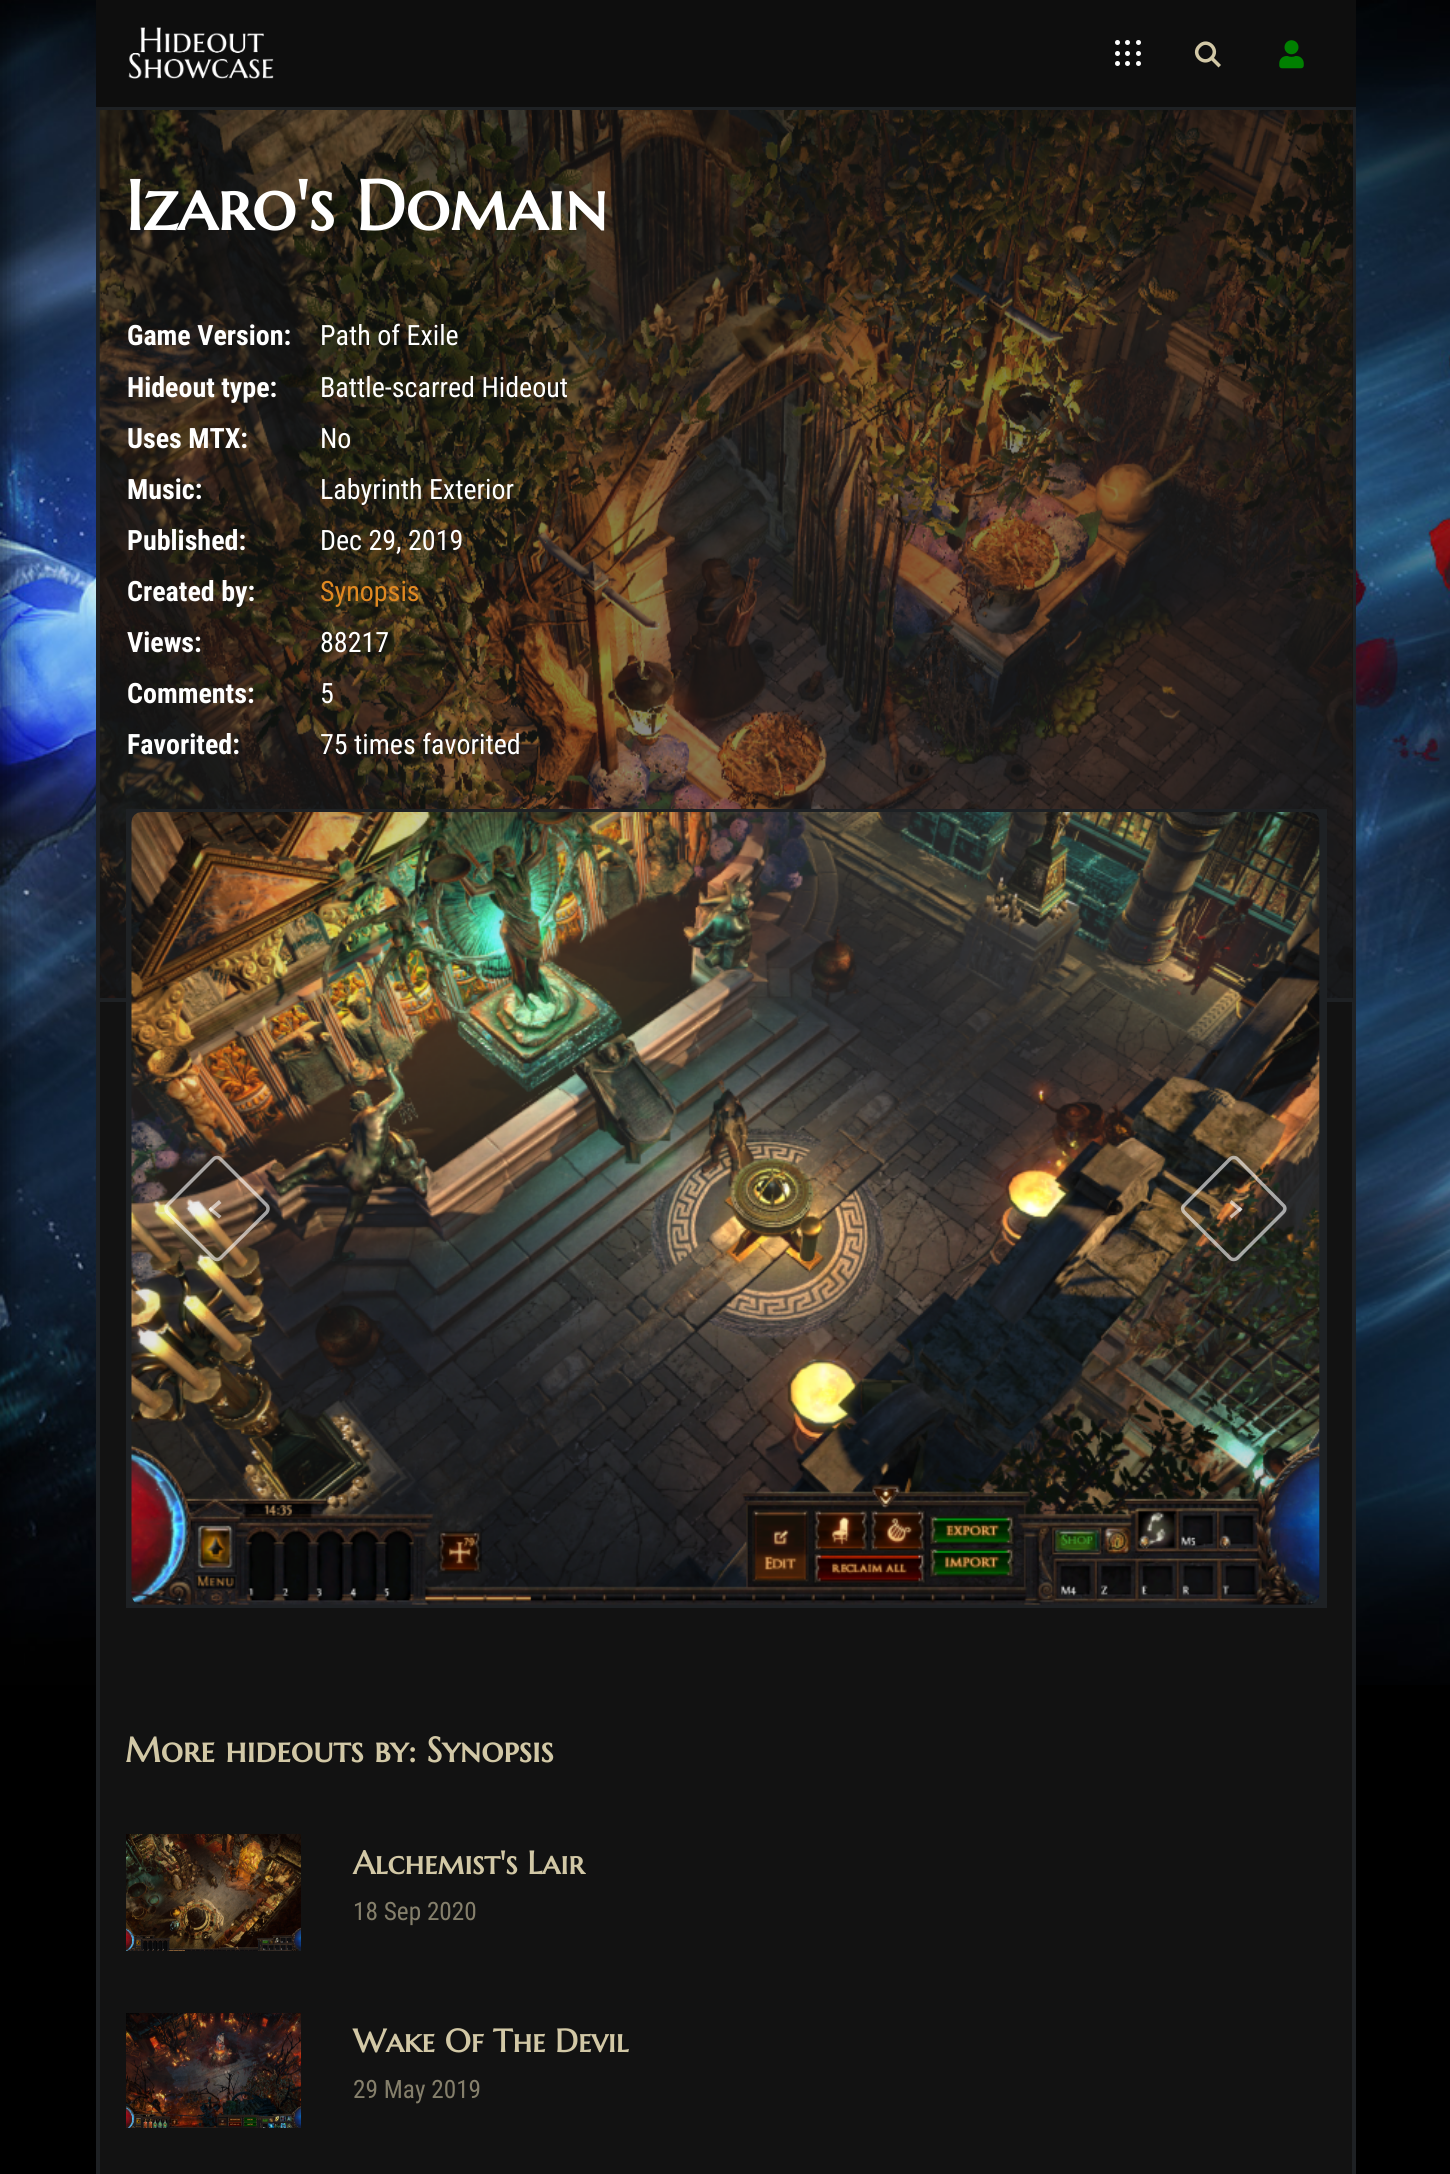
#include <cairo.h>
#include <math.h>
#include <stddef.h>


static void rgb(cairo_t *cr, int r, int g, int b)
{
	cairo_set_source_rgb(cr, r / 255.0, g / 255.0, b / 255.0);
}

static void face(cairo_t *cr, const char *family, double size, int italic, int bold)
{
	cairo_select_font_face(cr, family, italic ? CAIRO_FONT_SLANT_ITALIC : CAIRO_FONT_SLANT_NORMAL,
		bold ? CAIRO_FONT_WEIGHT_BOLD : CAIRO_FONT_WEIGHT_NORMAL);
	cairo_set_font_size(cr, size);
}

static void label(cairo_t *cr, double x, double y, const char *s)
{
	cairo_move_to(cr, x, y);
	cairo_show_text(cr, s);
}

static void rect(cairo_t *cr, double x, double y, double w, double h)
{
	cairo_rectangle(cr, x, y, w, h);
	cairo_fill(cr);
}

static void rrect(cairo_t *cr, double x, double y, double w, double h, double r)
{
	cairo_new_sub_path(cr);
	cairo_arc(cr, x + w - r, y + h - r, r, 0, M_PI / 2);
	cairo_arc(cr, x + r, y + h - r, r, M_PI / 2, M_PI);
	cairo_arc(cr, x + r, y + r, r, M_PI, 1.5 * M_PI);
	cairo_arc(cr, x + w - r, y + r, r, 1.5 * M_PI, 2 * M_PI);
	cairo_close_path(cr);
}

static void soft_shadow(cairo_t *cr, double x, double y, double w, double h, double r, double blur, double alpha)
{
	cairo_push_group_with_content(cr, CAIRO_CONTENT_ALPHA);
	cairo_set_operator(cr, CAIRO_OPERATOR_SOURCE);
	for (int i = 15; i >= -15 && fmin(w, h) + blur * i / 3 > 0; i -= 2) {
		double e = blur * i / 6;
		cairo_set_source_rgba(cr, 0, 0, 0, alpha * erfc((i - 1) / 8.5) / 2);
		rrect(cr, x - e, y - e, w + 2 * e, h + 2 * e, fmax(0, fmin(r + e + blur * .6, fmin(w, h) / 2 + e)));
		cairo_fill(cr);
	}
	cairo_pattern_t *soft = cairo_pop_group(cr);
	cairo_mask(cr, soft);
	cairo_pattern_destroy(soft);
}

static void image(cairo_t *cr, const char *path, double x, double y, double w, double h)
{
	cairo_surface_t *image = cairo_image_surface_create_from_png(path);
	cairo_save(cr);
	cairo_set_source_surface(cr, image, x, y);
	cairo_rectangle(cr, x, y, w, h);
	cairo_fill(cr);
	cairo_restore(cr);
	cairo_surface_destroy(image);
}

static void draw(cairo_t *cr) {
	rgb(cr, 0, 0, 0);
	cairo_paint(cr);
	image(cr, "image0.png", 0, 0, 1450, 1685);
	soft_shadow(cr, -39, -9, 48, 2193, 0, 13, 0.5);
	rgb(cr, 14, 14, 14);
	rect(cr, 96, 0, 1260, 107);
	image(cr, "image1.png", 128, 27, 146, 52);
	rgb(cr, 255, 255, 255);
	cairo_arc(cr, 1117.5, 42.5, 2.5, 0, 2 * M_PI);
	cairo_fill(cr);
	cairo_arc(cr, 1127.5, 42.5, 2.5, 0, 2 * M_PI);
	cairo_fill(cr);
	cairo_arc(cr, 1138.5, 42.5, 2.5, 0, 2 * M_PI);
	cairo_fill(cr);
	cairo_arc(cr, 1117.5, 53.5, 2.5, 0, 2 * M_PI);
	cairo_fill(cr);
	cairo_arc(cr, 1127.5, 53.5, 2.5, 0, 2 * M_PI);
	cairo_fill(cr);
	cairo_arc(cr, 1138.5, 53.5, 2.5, 0, 2 * M_PI);
	cairo_fill(cr);
	cairo_arc(cr, 1117.5, 63.5, 2.5, 0, 2 * M_PI);
	cairo_fill(cr);
	cairo_arc(cr, 1127.5, 63.5, 2.5, 0, 2 * M_PI);
	cairo_fill(cr);
	cairo_arc(cr, 1138.5, 63.5, 2.5, 0, 2 * M_PI);
	cairo_fill(cr);
	cairo_new_path(cr);
	cairo_move_to(cr, 1199.5, 46);
	cairo_curve_to(cr, 1207.5, 37.5, 1220, 50, 1211.5, 58);
	cairo_curve_to(cr, 1203.5, 66.5, 1191, 54, 1199.5, 46);
	cairo_close_path(cr);
	rgb(cr, 210, 200, 166);
	cairo_set_line_width(cr, 3.5);
	cairo_stroke(cr);
	cairo_new_path(cr);
	cairo_move_to(cr, 1211, 60);
	cairo_line_to(cr, 1213.5, 57.5);
	cairo_line_to(cr, 1221, 65);
	cairo_line_to(cr, 1218.5, 67.5);
	cairo_close_path(cr);
	cairo_fill(cr);
	image(cr, "image2.png", 1279, 40, 25, 29);
	rgb(cr, 18, 18, 18);
	rect(cr, 100, 1002, 1252, 1172);
	cairo_rectangle(cr, 98, 109, 1256, 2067);
	rgb(cr, 30, 33, 36);
	cairo_set_line_width(cr, 4);
	cairo_stroke(cr);
	rgb(cr, 14, 14, 14);
	rect(cr, 100, 110, 1253, 888);
	rgb(cr, 30, 33, 36);
	rect(cr, 100, 998, 1253, 4);
	image(cr, "image3.png", 99, 110, 1254, 888);
	face(cr, "Marcellus SC", 70, 0, 1);
	rgb(cr, 255, 255, 255);
	label(cr, 125, 230, "Izaro's Domain");
	face(cr, "Roboto Condensed", 28, 0, 1);
	label(cr, 127, 345, "Game Version:");
	face(cr, "Roboto Condensed", 28, 0, 0);
	label(cr, 320, 345, "Path of Exile");
	face(cr, "Roboto Condensed", 28, 0, 1);
	label(cr, 127, 397, "Hideout type:");
	face(cr, "Roboto Condensed", 28, 0, 0);
	label(cr, 320, 397, "Battle-scarred Hideout");
	face(cr, "Roboto Condensed", 28, 0, 1);
	label(cr, 127, 448, "Uses MTX:");
	face(cr, "Roboto Condensed", 28, 0, 0);
	label(cr, 320, 448, "No");
	face(cr, "Roboto Condensed", 28, 0, 1);
	label(cr, 127, 499, "Music:");
	face(cr, "Roboto Condensed", 28, 0, 0);
	label(cr, 320, 499, "Labyrinth Exterior");
	face(cr, "Roboto Condensed", 28, 0, 1);
	label(cr, 127, 550, "Published:");
	face(cr, "Roboto Condensed", 28, 0, 0);
	label(cr, 320, 550, "Dec 29, 2019");
	face(cr, "Roboto Condensed", 28, 0, 1);
	label(cr, 127, 601, "Created by:");
	face(cr, "Roboto Condensed", 28, 0, 0);
	rgb(cr, 224, 136, 33);
	label(cr, 320, 601, "Synopsis");
	face(cr, "Roboto Condensed", 28, 0, 1);
	rgb(cr, 255, 255, 255);
	label(cr, 127, 652, "Views:");
	face(cr, "Roboto Condensed", 28, 0, 0);
	label(cr, 320, 652, "88217");
	face(cr, "Roboto Condensed", 28, 0, 1);
	label(cr, 127, 703, "Comments:");
	face(cr, "Roboto Condensed", 28, 0, 0);
	label(cr, 320, 703, "5");
	face(cr, "Roboto Condensed", 28, 0, 1);
	label(cr, 127, 754, "Favorited:");
	face(cr, "Roboto Condensed", 28, 0, 0);
	label(cr, 320, 754, "75 times favorited");
	rgb(cr, 30, 33, 36);
	rect(cr, 126, 809, 1201, 799);
	image(cr, "image4.png", 131, 812, 1189, 793);
	cairo_new_path(cr);
	cairo_move_to(cr, 220.5, 1159);
	cairo_line_to(cr, 266.5, 1205);
	cairo_curve_to(cr, 268.5, 1207, 268.5, 1210, 266.5, 1212.5);
	cairo_line_to(cr, 220.5, 1258);
	cairo_curve_to(cr, 218.5, 1260, 215.5, 1260, 213.5, 1258);
	cairo_line_to(cr, 167.5, 1212.5);
	cairo_curve_to(cr, 165.5, 1210, 165.5, 1207, 167.5, 1205);
	cairo_line_to(cr, 213.5, 1159);
	cairo_curve_to(cr, 215.5, 1157, 218.5, 1157, 220.5, 1159);
	cairo_close_path(cr);
	cairo_set_source_rgba(cr, 1, 1, 1, 0.6);
	cairo_set_line_width(cr, 3.5);
	cairo_stroke(cr);
	cairo_new_path(cr);
	cairo_move_to(cr, 208.5, 1209);
	cairo_line_to(cr, 219, 1200);
	cairo_line_to(cr, 221.5, 1203);
	cairo_line_to(cr, 210.5, 1212);
	cairo_close_path(cr);
	cairo_fill(cr);
	cairo_new_path(cr);
	cairo_move_to(cr, 210.5, 1207);
	cairo_line_to(cr, 221.5, 1216);
	cairo_line_to(cr, 219, 1218.5);
	cairo_line_to(cr, 208.5, 1209.5);
	cairo_close_path(cr);
	cairo_fill(cr);
	cairo_new_path(cr);
	cairo_move_to(cr, 1237.5, 1159);
	cairo_line_to(cr, 1283, 1205);
	cairo_curve_to(cr, 1285.5, 1207, 1285.5, 1210, 1283, 1212.5);
	cairo_line_to(cr, 1237.5, 1258);
	cairo_curve_to(cr, 1235.5, 1260, 1232, 1260, 1230, 1258);
	cairo_line_to(cr, 1184.5, 1212.5);
	cairo_curve_to(cr, 1182, 1210, 1182, 1207, 1184.5, 1205);
	cairo_line_to(cr, 1230, 1159);
	cairo_curve_to(cr, 1232, 1157, 1235.5, 1157, 1237.5, 1159);
	cairo_close_path(cr);
	cairo_stroke(cr);
	cairo_new_path(cr);
	cairo_move_to(cr, 1229.5, 1216);
	cairo_line_to(cr, 1240, 1207);
	cairo_line_to(cr, 1242.5, 1209.5);
	cairo_line_to(cr, 1231.5, 1218.5);
	cairo_close_path(cr);
	cairo_fill(cr);
	cairo_new_path(cr);
	cairo_move_to(cr, 1231.5, 1200);
	cairo_line_to(cr, 1242.5, 1209);
	cairo_line_to(cr, 1240, 1212);
	cairo_line_to(cr, 1229.5, 1203);
	cairo_close_path(cr);
	cairo_fill(cr);
	face(cr, "Marcellus SC", 35, 0, 1);
	rgb(cr, 210, 200, 166);
	label(cr, 125, 1762, "More hideouts by: Synopsis");
	image(cr, "image5.png", 126, 1834, 175, 117);
	face(cr, "Marcellus SC", 32.25, 0, 1);
	label(cr, 353, 1874, "Alchemist's Lair");
	face(cr, "Roboto Condensed", 25.25, 0, 0);
	rgb(cr, 133, 127, 107);
	label(cr, 353, 1920, "18 Sep 2020");
	image(cr, "image6.png", 126, 2013, 175, 115);
	face(cr, "Marcellus SC", 32.25, 0, 1);
	rgb(cr, 210, 200, 166);
	label(cr, 353, 2052, "Wake Of The Devil");
	face(cr, "Roboto Condensed", 25.25, 0, 0);
	rgb(cr, 133, 127, 107);
	label(cr, 353, 2098, "29 May 2019");
}

int main(void) {
	cairo_surface_t *surface = cairo_image_surface_create(CAIRO_FORMAT_RGB24, 1450, 2174);
	cairo_t *cr = cairo_create(surface);
	cairo_font_options_t *options = cairo_font_options_create();
	cairo_font_options_set_hint_metrics(options, CAIRO_HINT_METRICS_OFF);
	cairo_font_options_set_hint_style(options, CAIRO_HINT_STYLE_NONE);
	cairo_set_font_options(cr, options);
	cairo_set_miter_limit(cr, 4);
	draw(cr);
	cairo_surface_write_to_png(surface, "render.png");
	cairo_font_options_destroy(options);
	cairo_destroy(cr);
	cairo_surface_destroy(surface);
	return 0;
}
